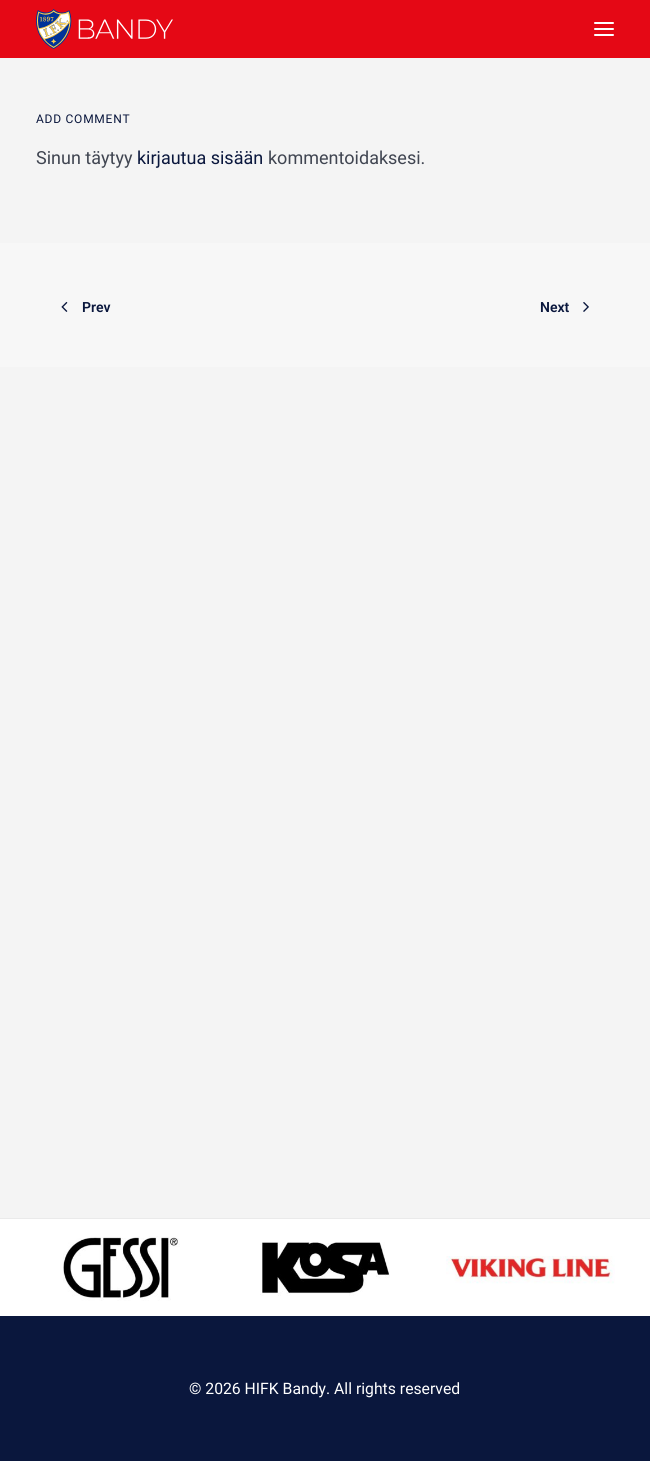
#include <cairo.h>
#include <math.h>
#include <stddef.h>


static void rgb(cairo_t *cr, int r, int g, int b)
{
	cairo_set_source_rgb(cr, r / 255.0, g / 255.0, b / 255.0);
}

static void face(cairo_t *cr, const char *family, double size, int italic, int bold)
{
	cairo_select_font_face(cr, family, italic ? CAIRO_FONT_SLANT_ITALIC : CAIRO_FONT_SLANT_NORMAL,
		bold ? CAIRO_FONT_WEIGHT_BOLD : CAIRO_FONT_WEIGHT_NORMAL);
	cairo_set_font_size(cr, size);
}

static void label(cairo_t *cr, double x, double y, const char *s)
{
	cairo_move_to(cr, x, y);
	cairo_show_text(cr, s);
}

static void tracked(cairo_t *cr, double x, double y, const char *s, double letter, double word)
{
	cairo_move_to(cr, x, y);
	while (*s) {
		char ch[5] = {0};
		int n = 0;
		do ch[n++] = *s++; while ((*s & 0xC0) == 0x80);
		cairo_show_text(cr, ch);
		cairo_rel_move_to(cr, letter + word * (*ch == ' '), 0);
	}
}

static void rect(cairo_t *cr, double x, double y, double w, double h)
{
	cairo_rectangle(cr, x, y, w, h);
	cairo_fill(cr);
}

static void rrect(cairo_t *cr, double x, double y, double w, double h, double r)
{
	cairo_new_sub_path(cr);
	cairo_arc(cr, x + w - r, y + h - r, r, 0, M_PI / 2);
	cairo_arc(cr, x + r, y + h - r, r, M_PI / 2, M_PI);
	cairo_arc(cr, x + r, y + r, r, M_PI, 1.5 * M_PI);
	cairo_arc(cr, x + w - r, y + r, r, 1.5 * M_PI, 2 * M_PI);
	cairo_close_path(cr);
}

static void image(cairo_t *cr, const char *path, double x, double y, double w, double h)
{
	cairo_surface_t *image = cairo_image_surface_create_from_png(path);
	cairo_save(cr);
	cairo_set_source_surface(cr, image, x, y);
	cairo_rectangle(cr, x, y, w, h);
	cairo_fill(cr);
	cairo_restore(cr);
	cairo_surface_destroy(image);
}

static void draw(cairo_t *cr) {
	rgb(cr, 255, 255, 255);
	cairo_paint(cr);
	rgb(cr, 229, 8, 21);
	rect(cr, 0, 0, 650, 58);
	image(cr, "image0.png", 36, 9, 137, 40);
	rgb(cr, 255, 255, 255);
	rrect(cr, 594, 28, 20, 2, 1);
	cairo_fill(cr);
	rrect(cr, 594, 22, 20, 2, 1);
	cairo_fill(cr);
	rrect(cr, 594, 34, 20, 2, 1);
	cairo_fill(cr);
	rgb(cr, 244, 244, 244);
	rect(cr, 0, 58, 650, 1160);
	face(cr, "Roboto", 12, 0, 0);
	rgb(cr, 10, 23, 61);
	tracked(cr, 36, 123, "ADD COMMENT", 0.75, 0);
	face(cr, "Roboto", 18, 0, 0);
	rgb(cr, 64, 69, 81);
	label(cr, 36, 164, "Sinun täytyy");
	rgb(cr, 10, 23, 61);
	label(cr, 137, 164, "kirjautua sisään");
	rgb(cr, 64, 69, 81);
	label(cr, 268, 164, "kommentoidaksesi.");
	rgb(cr, 247, 247, 247);
	rect(cr, 0, 243, 650, 124);
	image(cr, "image1.png", 61, 301, 7, 11);
	face(cr, "Roboto SemiBold", 14, 0, 0);
	rgb(cr, 10, 23, 61);
	label(cr, 82, 312, "Prev");
	label(cr, 540, 312, "Next");
	image(cr, "image2.png", 583, 302, 6, 10);
	rgb(cr, 234, 234, 234);
	rect(cr, 0, 1218, 650, 1);
	image(cr, "image3.png", 63, 1236, 117, 65);
	image(cr, "image4.png", 260, 1242, 130, 54);
	image(cr, "image5.png", 446, 1256, 169, 28);
	rgb(cr, 10, 23, 61);
	rect(cr, 0, 1316, 650, 145);
	face(cr, "Roboto", 15.75, 0, 0);
	rgb(cr, 255, 255, 255);
	label(cr, 189, 1394, "© 2026 HIFK Bandy. All rights reserved");
}

int main(void) {
	cairo_surface_t *surface = cairo_image_surface_create(CAIRO_FORMAT_RGB24, 650, 1461);
	cairo_t *cr = cairo_create(surface);
	cairo_font_options_t *options = cairo_font_options_create();
	cairo_font_options_set_hint_metrics(options, CAIRO_HINT_METRICS_OFF);
	cairo_font_options_set_hint_style(options, CAIRO_HINT_STYLE_NONE);
	cairo_set_font_options(cr, options);
	cairo_set_miter_limit(cr, 4);
	draw(cr);
	cairo_surface_write_to_png(surface, "render.png");
	cairo_font_options_destroy(options);
	cairo_destroy(cr);
	cairo_surface_destroy(surface);
	return 0;
}
